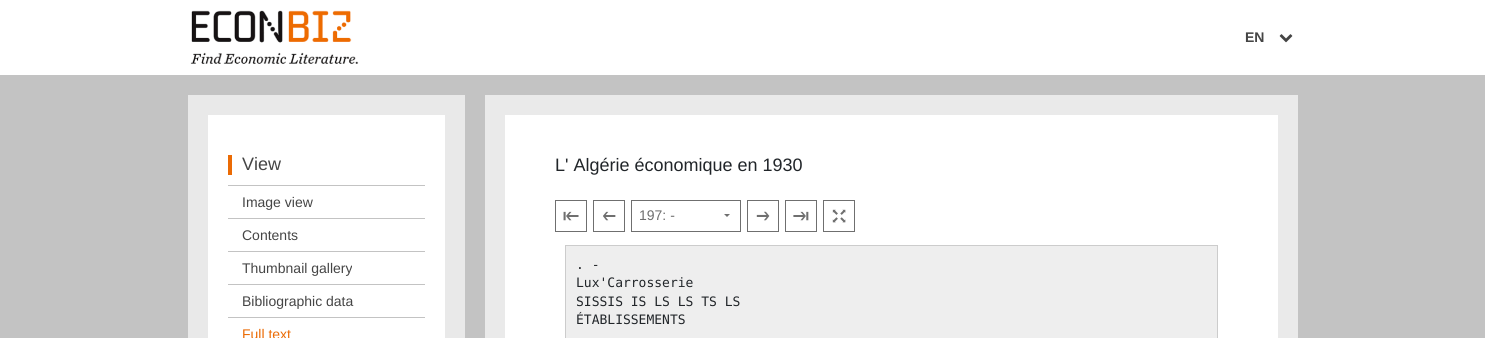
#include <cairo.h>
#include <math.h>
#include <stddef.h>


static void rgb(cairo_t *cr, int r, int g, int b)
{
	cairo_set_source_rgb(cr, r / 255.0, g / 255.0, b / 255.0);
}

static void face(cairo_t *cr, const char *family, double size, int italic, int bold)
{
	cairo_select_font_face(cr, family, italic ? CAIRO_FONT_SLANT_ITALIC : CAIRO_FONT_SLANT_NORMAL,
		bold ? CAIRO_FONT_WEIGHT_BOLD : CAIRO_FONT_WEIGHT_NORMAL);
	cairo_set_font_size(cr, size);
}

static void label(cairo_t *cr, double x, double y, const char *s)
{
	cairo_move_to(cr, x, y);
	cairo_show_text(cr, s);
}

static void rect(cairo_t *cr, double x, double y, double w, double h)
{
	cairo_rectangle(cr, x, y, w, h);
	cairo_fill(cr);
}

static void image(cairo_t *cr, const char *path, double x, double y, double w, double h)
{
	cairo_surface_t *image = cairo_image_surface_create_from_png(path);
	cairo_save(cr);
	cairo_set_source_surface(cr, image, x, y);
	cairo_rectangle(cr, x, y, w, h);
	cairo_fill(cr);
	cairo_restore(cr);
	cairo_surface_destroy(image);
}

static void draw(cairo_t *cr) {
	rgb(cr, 255, 255, 255);
	cairo_paint(cr);
	image(cr, "image0.png", 190, 10, 169, 54);
	face(cr, "Liberation Sans", 14, 0, 1);
	rgb(cr, 69, 69, 69);
	label(cr, 1245, 42, "EN");
	image(cr, "image1.png", 1279, 34, 14, 9);
	rgb(cr, 195, 195, 195);
	rect(cr, 0, 75, 1485, 263);
	rgb(cr, 233, 233, 233);
	rect(cr, 188, 95, 277, 243);
	rgb(cr, 255, 255, 255);
	rect(cr, 208, 115, 237, 223);
	rgb(cr, 235, 107, 5);
	rect(cr, 228, 155, 4, 20);
	face(cr, "Liberation Sans", 18, 0, 0);
	rgb(cr, 69, 69, 69);
	label(cr, 242, 170, "View");
	rgb(cr, 195, 195, 195);
	rect(cr, 228, 185, 197, 1);
	face(cr, "Liberation Sans", 14, 0, 0);
	rgb(cr, 69, 69, 69);
	label(cr, 242, 207, "Image view");
	rgb(cr, 195, 195, 195);
	rect(cr, 228, 218, 197, 1);
	rgb(cr, 69, 69, 69);
	label(cr, 242, 240, "Contents");
	rgb(cr, 195, 195, 195);
	rect(cr, 228, 251, 197, 1);
	rgb(cr, 69, 69, 69);
	label(cr, 242, 273, "Thumbnail gallery");
	rgb(cr, 195, 195, 195);
	rect(cr, 228, 284, 197, 1);
	rgb(cr, 69, 69, 69);
	label(cr, 242, 306, "Bibliographic data");
	rgb(cr, 195, 195, 195);
	rect(cr, 228, 317, 197, 1);
	rgb(cr, 235, 107, 5);
	label(cr, 242, 339, "Full text");
	rgb(cr, 234, 234, 234);
	rect(cr, 485, 95, 813, 243);
	rgb(cr, 255, 255, 255);
	rect(cr, 505, 115, 773, 223);
	face(cr, "Liberation Sans", 18, 0, 0);
	rgb(cr, 33, 37, 41);
	label(cr, 555, 171, "L' Algérie économique en 1930");
	cairo_rectangle(cr, 555.5, 200.5, 31, 31);
	rgb(cr, 111, 111, 111);
	cairo_set_line_width(cr, 1);
	cairo_stroke(cr);
	image(cr, "image2.png", 563, 211, 16, 10);
	cairo_rectangle(cr, 593.5, 200.5, 31, 31);
	cairo_stroke(cr);
	image(cr, "image3.png", 603, 211, 13, 10);
	cairo_rectangle(cr, 631.5, 200.5, 109, 31);
	cairo_stroke(cr);
	face(cr, "Liberation Sans", 14, 0, 0);
	label(cr, 639, 220, "197: -");
	cairo_new_path(cr);
	cairo_move_to(cr, 724, 214);
	cairo_line_to(cr, 730, 214);
	cairo_line_to(cr, 727, 217);
	cairo_close_path(cr);
	cairo_fill(cr);
	cairo_rectangle(cr, 747.5, 200.5, 31, 31);
	cairo_stroke(cr);
	image(cr, "image4.png", 756, 211, 14, 10);
	cairo_rectangle(cr, 785.5, 200.5, 31, 31);
	cairo_stroke(cr);
	image(cr, "image5.png", 793, 211, 16, 10);
	cairo_rectangle(cr, 823.5, 200.5, 31, 31);
	cairo_stroke(cr);
	image(cr, "image6.png", 832, 209, 14, 14);
	rgb(cr, 238, 238, 238);
	cairo_rectangle(cr, 565.5, 245.5, 652, 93);
	cairo_fill_preserve(cr);
	rgb(cr, 204, 204, 204);
	cairo_stroke(cr);
	face(cr, "DejaVu Sans Mono", 13, 0, 0);
	rgb(cr, 33, 37, 41);
	label(cr, 576, 269, ". -");
	label(cr, 576, 287, "Lux'Carrosserie");
	label(cr, 576, 306, "SISSIS IS LS LS TS LS");
	label(cr, 576, 324, "ÉTABLISSEMENTS");
}

int main(void) {
	cairo_surface_t *surface = cairo_image_surface_create(CAIRO_FORMAT_RGB24, 1485, 338);
	cairo_t *cr = cairo_create(surface);
	cairo_font_options_t *options = cairo_font_options_create();
	cairo_font_options_set_hint_metrics(options, CAIRO_HINT_METRICS_OFF);
	cairo_font_options_set_hint_style(options, CAIRO_HINT_STYLE_NONE);
	cairo_set_font_options(cr, options);
	cairo_set_miter_limit(cr, 4);
	draw(cr);
	cairo_surface_write_to_png(surface, "render.png");
	cairo_font_options_destroy(options);
	cairo_destroy(cr);
	cairo_surface_destroy(surface);
	return 0;
}
